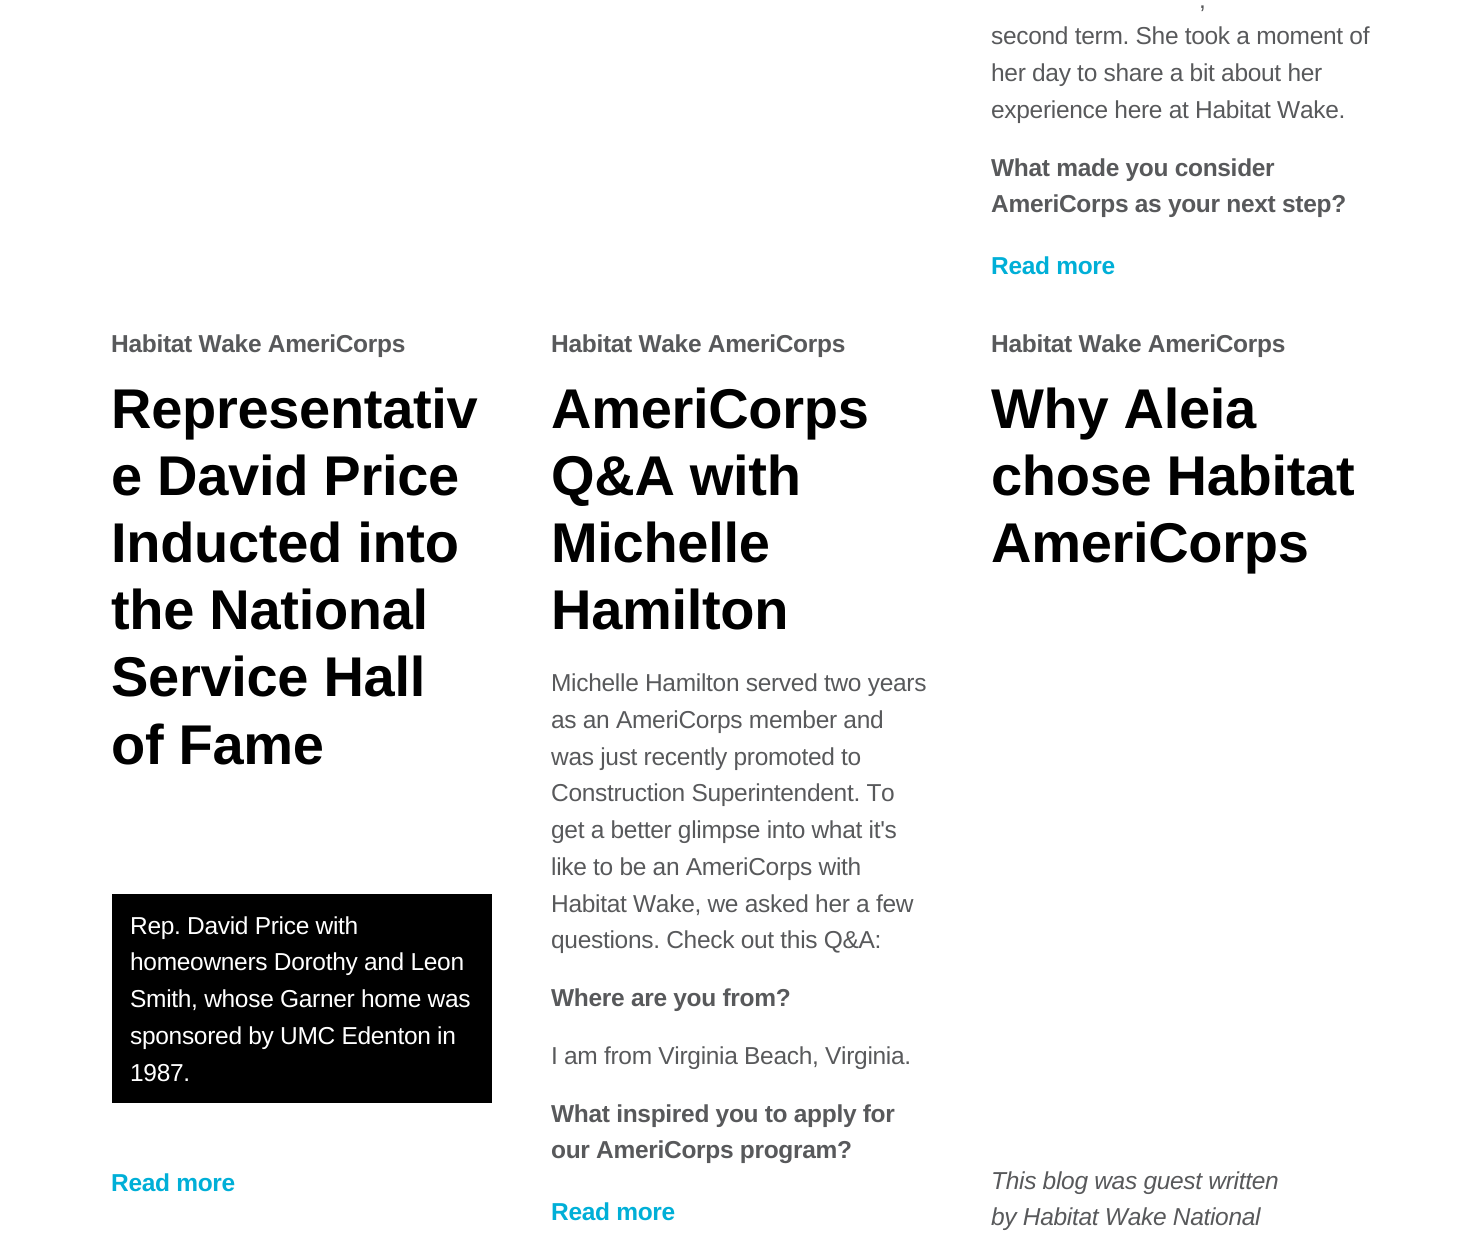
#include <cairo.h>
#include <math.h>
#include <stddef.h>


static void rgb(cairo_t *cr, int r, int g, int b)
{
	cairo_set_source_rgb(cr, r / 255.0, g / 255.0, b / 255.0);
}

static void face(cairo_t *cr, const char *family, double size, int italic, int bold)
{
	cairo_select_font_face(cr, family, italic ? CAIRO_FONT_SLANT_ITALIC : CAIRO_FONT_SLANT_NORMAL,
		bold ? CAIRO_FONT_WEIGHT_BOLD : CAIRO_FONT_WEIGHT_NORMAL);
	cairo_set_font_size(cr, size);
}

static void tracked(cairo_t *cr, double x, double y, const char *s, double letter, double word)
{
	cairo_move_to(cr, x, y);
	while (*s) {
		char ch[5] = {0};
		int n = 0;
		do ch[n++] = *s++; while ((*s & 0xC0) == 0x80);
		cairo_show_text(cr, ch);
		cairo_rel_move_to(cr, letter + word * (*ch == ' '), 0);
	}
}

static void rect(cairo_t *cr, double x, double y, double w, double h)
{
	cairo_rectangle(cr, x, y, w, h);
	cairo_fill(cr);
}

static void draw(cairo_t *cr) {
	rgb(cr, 255, 255, 255);
	cairo_paint(cr);
	face(cr, "Liberation Sans", 24.5, 0, 0);
	rgb(cr, 88, 89, 91);
	tracked(cr, 1199, 8, ",", -0.3, 0);
	tracked(cr, 991, 44, "second term. She took a moment of", -0.3, 0);
	tracked(cr, 991, 81, "her day to share a bit about her", -0.3, 0);
	tracked(cr, 991, 118, "experience here at Habitat Wake.", -0.3, 0);
	face(cr, "Liberation Sans", 24.5, 0, 1);
	tracked(cr, 991, 176, "What made you consider", -0.3, 0);
	tracked(cr, 991, 212, "AmeriCorps as your next step?", -0.3, 0);
	rgb(cr, 0, 175, 215);
	tracked(cr, 991, 274, "Read more", -0.3, 0);
	rgb(cr, 88, 89, 91);
	tracked(cr, 111, 352, "Habitat Wake AmeriCorps", -0.3, 0);
	face(cr, "Liberation Sans", 56, 0, 1);
	rgb(cr, 0, 0, 0);
	tracked(cr, 111, 428, "Representativ", -0.3, 0);
	tracked(cr, 111, 495, "e David Price", -0.3, 0);
	tracked(cr, 111, 562, "Inducted into", -0.3, 0);
	tracked(cr, 111, 629, "the National", -0.3, 0);
	tracked(cr, 111, 696, "Service Hall", -0.3, 0);
	tracked(cr, 111, 764, "of Fame", -0.3, 0);
	rect(cr, 112, 894, 380, 209);
	face(cr, "Liberation Sans", 24.5, 0, 0);
	rgb(cr, 255, 255, 255);
	tracked(cr, 130, 934, "Rep. David Price with", -0.3, 0);
	tracked(cr, 130, 970, "homeowners Dorothy and Leon", -0.3, 0);
	tracked(cr, 130, 1007, "Smith, whose Garner home was", -0.3, 0);
	tracked(cr, 130, 1044, "sponsored by UMC Edenton in", -0.3, 0);
	tracked(cr, 130, 1081, "1987.", -0.3, 0);
	face(cr, "Liberation Sans", 24.5, 0, 1);
	rgb(cr, 0, 175, 215);
	tracked(cr, 111, 1191, "Read more", -0.3, 0);
	rgb(cr, 88, 89, 91);
	tracked(cr, 551, 352, "Habitat Wake AmeriCorps", -0.3, 0);
	face(cr, "Liberation Sans", 56, 0, 1);
	rgb(cr, 0, 0, 0);
	tracked(cr, 551, 428, "AmeriCorps", -0.3, 0);
	tracked(cr, 551, 495, "Q&A with", -0.3, 0);
	tracked(cr, 551, 562, "Michelle", -0.3, 0);
	tracked(cr, 551, 629, "Hamilton", -0.3, 0);
	face(cr, "Liberation Sans", 24.5, 0, 0);
	rgb(cr, 88, 89, 91);
	tracked(cr, 551, 691, "Michelle Hamilton served two years", -0.3, 0);
	tracked(cr, 551, 728, "as an AmeriCorps member and", -0.3, 0);
	tracked(cr, 551, 765, "was just recently promoted to", -0.3, 0);
	tracked(cr, 551, 801, "Construction Superintendent. To", -0.3, 0);
	tracked(cr, 551, 838, "get a better glimpse into what it's", -0.3, 0);
	tracked(cr, 551, 875, "like to be an AmeriCorps with", -0.3, 0);
	tracked(cr, 551, 912, "Habitat Wake, we asked her a few", -0.3, 0);
	tracked(cr, 551, 948, "questions. Check out this Q&A:", -0.3, 0);
	face(cr, "Liberation Sans", 24.5, 0, 1);
	tracked(cr, 551, 1006, "Where are you from?", -0.3, 0);
	face(cr, "Liberation Sans", 24.5, 0, 0);
	tracked(cr, 551, 1064, "I am from Virginia Beach, Virginia.", -0.3, 0);
	face(cr, "Liberation Sans", 24.5, 0, 1);
	tracked(cr, 551, 1122, "What inspired you to apply for", -0.3, 0);
	tracked(cr, 551, 1158, "our AmeriCorps program?", -0.3, 0);
	rgb(cr, 0, 175, 215);
	tracked(cr, 551, 1220, "Read more", -0.3, 0);
	rgb(cr, 88, 89, 91);
	tracked(cr, 991, 352, "Habitat Wake AmeriCorps", -0.3, 0);
	face(cr, "Liberation Sans", 56, 0, 1);
	rgb(cr, 0, 0, 0);
	tracked(cr, 991, 428, "Why Aleia", -0.3, 0);
	tracked(cr, 991, 495, "chose Habitat", -0.3, 0);
	tracked(cr, 991, 562, "AmeriCorps", -0.3, 0);
	face(cr, "Liberation Sans", 24.5, 1, 0);
	rgb(cr, 88, 89, 91);
	tracked(cr, 991, 1189, "This blog was guest written", -0.3, 0);
	tracked(cr, 991, 1225, "by Habitat Wake National", -0.3, 0);
}

int main(void) {
	cairo_surface_t *surface = cairo_image_surface_create(CAIRO_FORMAT_RGB24, 1482, 1234);
	cairo_t *cr = cairo_create(surface);
	cairo_font_options_t *options = cairo_font_options_create();
	cairo_font_options_set_hint_metrics(options, CAIRO_HINT_METRICS_OFF);
	cairo_font_options_set_hint_style(options, CAIRO_HINT_STYLE_NONE);
	cairo_set_font_options(cr, options);
	cairo_set_miter_limit(cr, 4);
	draw(cr);
	cairo_surface_write_to_png(surface, "render.png");
	cairo_font_options_destroy(options);
	cairo_destroy(cr);
	cairo_surface_destroy(surface);
	return 0;
}
